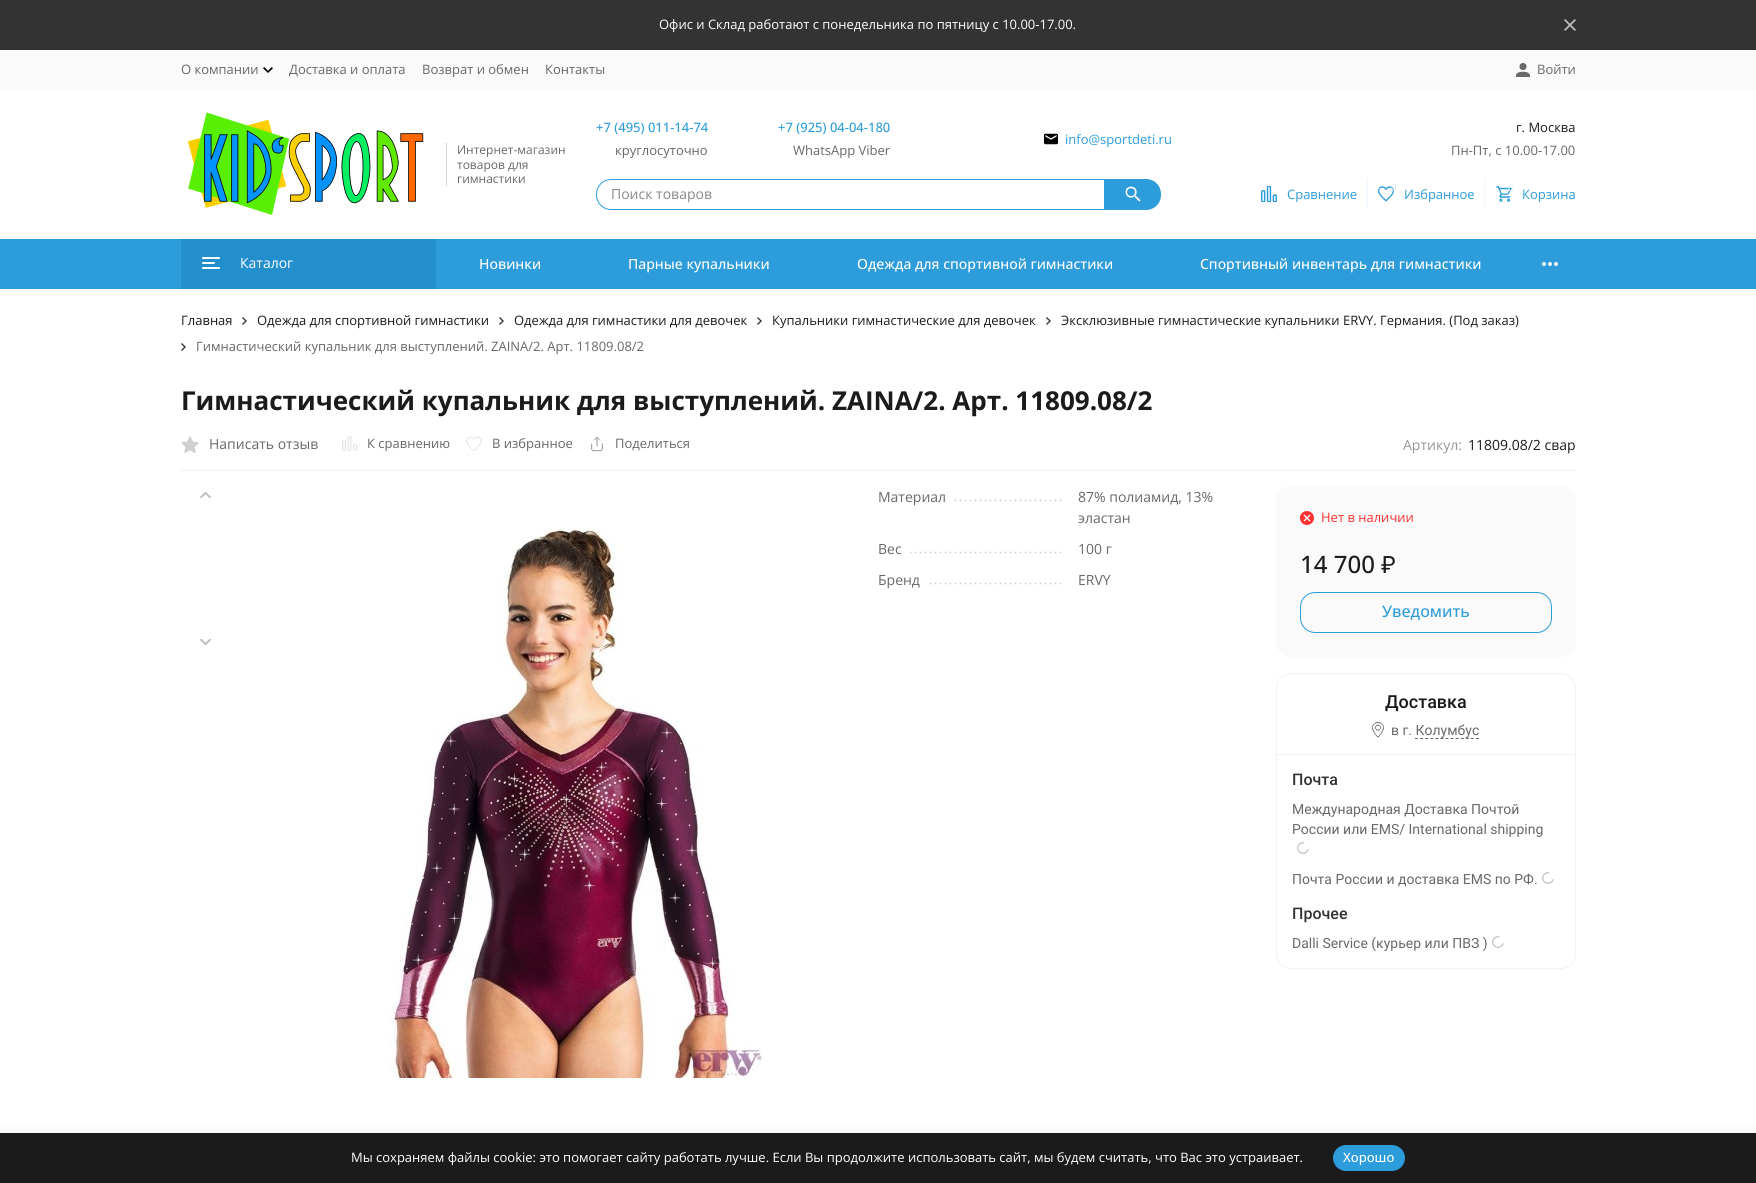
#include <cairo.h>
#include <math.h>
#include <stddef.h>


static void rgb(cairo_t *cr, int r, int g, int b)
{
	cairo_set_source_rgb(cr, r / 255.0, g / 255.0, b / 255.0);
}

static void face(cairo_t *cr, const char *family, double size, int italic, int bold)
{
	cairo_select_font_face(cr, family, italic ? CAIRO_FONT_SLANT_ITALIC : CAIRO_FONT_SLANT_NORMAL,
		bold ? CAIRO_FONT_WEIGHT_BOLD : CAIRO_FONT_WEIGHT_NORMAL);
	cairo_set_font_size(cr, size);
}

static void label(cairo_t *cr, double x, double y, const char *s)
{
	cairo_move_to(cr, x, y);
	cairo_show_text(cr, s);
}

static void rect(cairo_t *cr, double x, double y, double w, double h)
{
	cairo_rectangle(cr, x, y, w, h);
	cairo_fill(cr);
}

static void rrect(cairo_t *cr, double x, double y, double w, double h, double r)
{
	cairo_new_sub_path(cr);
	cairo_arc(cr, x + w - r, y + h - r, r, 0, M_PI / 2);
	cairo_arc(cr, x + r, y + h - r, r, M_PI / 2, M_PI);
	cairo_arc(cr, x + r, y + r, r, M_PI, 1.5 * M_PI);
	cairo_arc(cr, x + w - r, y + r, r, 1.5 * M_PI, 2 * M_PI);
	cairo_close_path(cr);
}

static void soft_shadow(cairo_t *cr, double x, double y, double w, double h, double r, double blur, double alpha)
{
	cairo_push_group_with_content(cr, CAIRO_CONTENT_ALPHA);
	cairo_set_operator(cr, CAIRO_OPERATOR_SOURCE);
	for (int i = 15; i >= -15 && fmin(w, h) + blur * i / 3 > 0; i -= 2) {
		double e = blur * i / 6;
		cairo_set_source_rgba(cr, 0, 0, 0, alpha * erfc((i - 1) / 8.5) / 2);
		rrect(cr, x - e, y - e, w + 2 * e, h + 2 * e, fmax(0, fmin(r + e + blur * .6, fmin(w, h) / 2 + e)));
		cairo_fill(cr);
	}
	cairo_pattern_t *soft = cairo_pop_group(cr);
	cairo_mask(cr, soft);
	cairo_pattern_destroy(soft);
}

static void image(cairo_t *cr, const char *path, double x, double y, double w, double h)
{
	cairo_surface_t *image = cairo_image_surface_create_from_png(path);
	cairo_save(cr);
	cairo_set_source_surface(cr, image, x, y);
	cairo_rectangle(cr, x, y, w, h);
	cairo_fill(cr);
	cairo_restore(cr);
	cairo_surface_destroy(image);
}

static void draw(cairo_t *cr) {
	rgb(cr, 255, 255, 255);
	cairo_paint(cr);
	rgb(cr, 51, 51, 51);
	rect(cr, 0, 0, 1756, 50);
	face(cr, "Open Sans", 13, 0, 0);
	rgb(cr, 255, 255, 255);
	label(cr, 659, 29, "Офис и Склад работают с понедельника по пятницу с 10.00-17.00.");
	image(cr, "image0.png", 1564, 19, 12, 12);
	rgb(cr, 250, 250, 250);
	rect(cr, 0, 50, 1756, 40);
	rgb(cr, 104, 104, 104);
	label(cr, 181, 74, "О компании");
	image(cr, "image1.png", 263, 67, 10, 6);
	label(cr, 289, 74, "Доставка и оплата");
	label(cr, 422, 74, "Возврат и обмен");
	label(cr, 545, 74, "Контакты");
	image(cr, "image2.png", 1516, 63, 14, 14);
	label(cr, 1537, 74, "Войти");
	image(cr, "image3.png", 187, 112, 237, 103);
	rgb(cr, 211, 211, 211);
	rect(cr, 446, 143, 1, 43);
	face(cr, "Open Sans", 12, 0, 0);
	rgb(cr, 104, 104, 104);
	label(cr, 457, 154, "Интернет-магазин");
	label(cr, 457, 169, "товаров для");
	label(cr, 457, 183, "гимнастики");
	face(cr, "Open Sans Medium", 13, 0, 0);
	rgb(cr, 45, 156, 219);
	label(cr, 596, 132, "+7 (495) 011-14-74");
	face(cr, "Open Sans", 13, 0, 0);
	rgb(cr, 104, 104, 104);
	label(cr, 615, 155, "круглосуточно");
	face(cr, "Open Sans Medium", 13, 0, 0);
	rgb(cr, 45, 156, 219);
	label(cr, 778, 132, "+7 (925) 04-04-180");
	face(cr, "Open Sans", 13, 0, 0);
	rgb(cr, 104, 104, 104);
	label(cr, 793, 155, "WhatsApp Viber");
	image(cr, "image4.png", 1044, 133, 14, 12);
	rgb(cr, 45, 156, 219);
	label(cr, 1065, 144, "info@sportdeti.ru");
	rgb(cr, 27, 27, 27);
	label(cr, 1516, 132, "г. Москва");
	rgb(cr, 104, 104, 104);
	label(cr, 1451, 155, "Пн-Пт, с 10.00-17.00");
	cairo_new_path(cr);
	cairo_move_to(cr, 611, 179.5);
	cairo_line_to(cr, 1104.5, 179.5);
	cairo_line_to(cr, 1104.5, 209.5);
	cairo_line_to(cr, 611, 209.5);
	cairo_curve_to(cr, 603, 209.5, 596.5, 203, 596.5, 195);
	cairo_line_to(cr, 596.5, 194);
	cairo_curve_to(cr, 596.5, 186, 603, 179.5, 611, 179.5);
	cairo_close_path(cr);
	rgb(cr, 45, 156, 219);
	cairo_set_line_width(cr, 1);
	cairo_stroke(cr);
	face(cr, "Open Sans", 14, 0, 0);
	rgb(cr, 136, 136, 136);
	label(cr, 611, 199, "Поиск товаров");
	rgb(cr, 45, 156, 219);
	cairo_new_path(cr);
	cairo_move_to(cr, 1105, 179);
	cairo_line_to(cr, 1146, 179);
	cairo_curve_to(cr, 1154.5, 179, 1161, 185.5, 1161, 194);
	cairo_line_to(cr, 1161, 195);
	cairo_curve_to(cr, 1161, 203.5, 1154.5, 210, 1146, 210);
	cairo_line_to(cr, 1105, 210);
	cairo_close_path(cr);
	cairo_fill(cr);
	image(cr, "image5.png", 1125, 186, 16, 16);
	image(cr, "image6.png", 1261, 186, 16, 16);
	face(cr, "Open Sans", 13, 0, 0);
	label(cr, 1287, 199, "Сравнение");
	rgb(cr, 235, 248, 255);
	rect(cr, 1367, 179, 1, 30);
	image(cr, "image7.png", 1378, 186, 16, 16);
	face(cr, "Open Sans", 10, 0, 0);
	rgb(cr, 216, 236, 248);
	label(cr, 1391, 191, "0");
	face(cr, "Open Sans", 13, 0, 0);
	rgb(cr, 45, 156, 219);
	label(cr, 1404, 199, "Избранное");
	rgb(cr, 235, 248, 255);
	rect(cr, 1485, 179, 1, 30);
	image(cr, "image8.png", 1496, 186, 16, 16);
	face(cr, "Open Sans", 10, 0, 0);
	rgb(cr, 224, 241, 250);
	label(cr, 1508, 191, "0");
	face(cr, "Open Sans", 13, 0, 0);
	rgb(cr, 45, 156, 219);
	label(cr, 1522, 199, "Корзина");
	rect(cr, 0, 239, 1756, 50);
	rgb(cr, 35, 143, 205);
	rect(cr, 181, 239, 255, 50);
	rgb(cr, 255, 255, 255);
	rrect(cr, 202, 257, 18, 2, 1);
	cairo_fill(cr);
	rrect(cr, 202, 262, 13, 2, 1);
	cairo_fill(cr);
	rrect(cr, 202, 267, 18, 2, 1);
	cairo_fill(cr);
	face(cr, "Open Sans", 14, 0, 0);
	label(cr, 240, 268, "Каталог");
	face(cr, "Open Sans Medium", 14, 0, 0);
	label(cr, 479, 269, "Новинки");
	label(cr, 628, 269, "Парные купальники");
	label(cr, 857, 269, "Одежда для спортивной гимнастики");
	label(cr, 1200, 269, "Спортивный инвентарь для гимнастики");
	image(cr, "image9.png", 1542, 262, 16, 4);
	face(cr, "Open Sans", 13, 0, 0);
	rgb(cr, 27, 27, 27);
	label(cr, 181, 325, "Главная");
	image(cr, "image10.png", 242, 317, 5, 8);
	label(cr, 257, 325, "Одежда для спортивной гимнастики");
	image(cr, "image10.png", 499, 317, 5, 8);
	label(cr, 514, 325, "Одежда для гимнастики для девочек");
	image(cr, "image10.png", 757, 317, 5, 8);
	label(cr, 772, 325, "Купальники гимнастические для девочек");
	image(cr, "image10.png", 1046, 317, 5, 8);
	label(cr, 1061, 325, "Эксклюзивные гимнастические купальники ERVY. Германия. (Под заказ)");
	image(cr, "image10.png", 181, 343, 5, 8);
	rgb(cr, 104, 104, 104);
	label(cr, 196, 351, "Гимнастический купальник для выступлений. ZAINA/2. Арт. 11809.08/2");
	rgb(cr, 242, 242, 242);
	rect(cr, 181, 470, 1395, 1);
	face(cr, "Open Sans", 26, 0, 1);
	rgb(cr, 27, 27, 27);
	label(cr, 181, 410, "Гимнастический купальник для выступлений. ZAINA/2. Арт. 11809.08/2");
	image(cr, "image11.png", 181, 436, 18, 17);
	face(cr, "Open Sans", 14, 0, 0);
	rgb(cr, 104, 104, 104);
	label(cr, 209, 449, "Написать отзыв");
	image(cr, "image12.png", 342, 436, 15, 15);
	face(cr, "Open Sans", 13, 0, 0);
	label(cr, 367, 448, "К сравнению");
	image(cr, "image13.png", 466, 436, 16, 15);
	label(cr, 492, 448, "В избранное");
	image(cr, "image14.png", 591, 437, 12, 15);
	label(cr, 615, 448, "Поделиться");
	face(cr, "Open Sans", 14, 0, 0);
	rgb(cr, 151, 151, 151);
	label(cr, 1403, 450, "Артикул:");
	rgb(cr, 27, 27, 27);
	label(cr, 1468, 450, "11809.08/2 свар");
	image(cr, "image15.png", 200, 492, 11, 6);
	image(cr, "image16.png", 200, 639, 11, 6);
	image(cr, "image17.png", 389, 527, 374, 551);
	cairo_new_path(cr);
	cairo_move_to(cr, 880.5, 500.5);
	cairo_line_to(cr, 1060.7, 500.5);
	rgb(cr, 207, 207, 207);
	cairo_set_line_width(cr, 1.8);
	cairo_set_line_cap(cr, CAIRO_LINE_CAP_ROUND);
	cairo_set_dash(cr, (double[]){0, 5}, 2, 0);
	cairo_stroke(cr);
	rgb(cr, 255, 255, 255);
	rect(cr, 879, 499, 73, 3);
	rgb(cr, 104, 104, 104);
	label(cr, 878, 502, "Материал");
	label(cr, 1078, 502, "87% полиамид, 13%");
	label(cr, 1078, 523, "эластан");
	cairo_new_path(cr);
	cairo_move_to(cr, 880.5, 552.5);
	cairo_line_to(cr, 1060.7, 552.5);
	rgb(cr, 207, 207, 207);
	cairo_stroke(cr);
	rgb(cr, 255, 255, 255);
	rect(cr, 879, 551, 31, 3);
	rgb(cr, 104, 104, 104);
	label(cr, 878, 554, "Вес");
	label(cr, 1078, 554, "100 г");
	cairo_new_path(cr);
	cairo_move_to(cr, 880.5, 583.5);
	cairo_line_to(cr, 1060.7, 583.5);
	rgb(cr, 207, 207, 207);
	cairo_stroke(cr);
	rgb(cr, 255, 255, 255);
	rect(cr, 879, 582, 48, 3);
	rgb(cr, 104, 104, 104);
	label(cr, 878, 585, "Бренд");
	label(cr, 1078, 585, "ERVY");
	rgb(cr, 250, 250, 250);
	rrect(cr, 1276, 486, 300, 171, 15);
	cairo_fill(cr);
	image(cr, "image18.png", 1300, 511, 14, 14);
	face(cr, "Open Sans", 13, 0, 0);
	rgb(cr, 255, 49, 49);
	label(cr, 1321, 522, "Нет в наличии");
	face(cr, "Open Sans Medium", 24, 0, 0);
	rgb(cr, 27, 27, 27);
	label(cr, 1300, 573, "14 700");
	face(cr, "Nunito Sans Medium", 24, 0, 0);
	label(cr, 1381, 573, "₽");
	rrect(cr, 1300.5, 592.5, 251, 40, 14.5);
	rgb(cr, 45, 156, 219);
	cairo_set_line_width(cr, 1);
	cairo_set_line_cap(cr, CAIRO_LINE_CAP_BUTT);
	cairo_set_dash(cr, NULL, 0, 0);
	cairo_stroke(cr);
	face(cr, "Open Sans Medium", 16, 0, 0);
	label(cr, 1382, 617, "Уведомить");
	rrect(cr, 1276.5, 673.5, 299, 295, 14.5);
	rgb(cr, 242, 242, 242);
	cairo_stroke(cr);
	rect(cr, 1277, 754, 298, 1);
	face(cr, "Roboto Medium", 18, 0, 0);
	rgb(cr, 27, 27, 27);
	label(cr, 1385, 708, "Доставка");
	image(cr, "image19.png", 1372, 722, 12, 16);
	face(cr, "Roboto", 14, 0, 0);
	rgb(cr, 104, 104, 104);
	label(cr, 1391, 735, "в г. Колумбус");
	cairo_new_path(cr);
	cairo_move_to(cr, 1415, 738.5);
	cairo_line_to(cr, 1479, 738.5);
	cairo_set_dash(cr, (double[]){3, 2.08}, 2, 0);
	cairo_stroke(cr);
	face(cr, "Roboto Medium", 16, 0, 0);
	rgb(cr, 51, 51, 51);
	label(cr, 1292, 785, "Почта");
	face(cr, "Roboto", 14, 0, 0);
	rgb(cr, 104, 104, 104);
	label(cr, 1292, 814, "Международная Доставка Почтой");
	label(cr, 1292, 834, "России или EMS/ International shipping");
	image(cr, "image20.png", 1297, 842, 12, 12);
	label(cr, 1292, 884, "Почта России и доставка EMS по РФ.");
	image(cr, "image20.png", 1542, 872, 12, 12);
	face(cr, "Roboto Medium", 16, 0, 0);
	rgb(cr, 51, 51, 51);
	label(cr, 1292, 919, "Прочее");
	face(cr, "Roboto", 14, 0, 0);
	rgb(cr, 104, 104, 104);
	label(cr, 1292, 948, "Dalli Service (курьер или ПВЗ )");
	image(cr, "image20.png", 1492, 936, 12, 12);
	rgb(cr, 0, 0, 0);
	soft_shadow(cr, 0, 1133, 1756, 50, 0, 7.5, 0.07);
	rgb(cr, 27, 27, 27);
	rect(cr, 0, 1133, 1756, 50);
	face(cr, "Open Sans", 13, 0, 0);
	rgb(cr, 255, 255, 255);
	label(cr, 351, 1162, "Мы сохраняем файлы cookie: это помогает сайту работать лучше. Если Вы продолжите использовать сайт, мы будем считать, что Вас это устраивает.");
	rgb(cr, 45, 156, 219);
	rrect(cr, 1333, 1145, 72, 26, 13);
	cairo_fill(cr);
	face(cr, "Open Sans Medium", 13, 0, 0);
	rgb(cr, 255, 255, 255);
	label(cr, 1343, 1162, "Хорошо");
}

int main(void) {
	cairo_surface_t *surface = cairo_image_surface_create(CAIRO_FORMAT_RGB24, 1756, 1183);
	cairo_t *cr = cairo_create(surface);
	cairo_font_options_t *options = cairo_font_options_create();
	cairo_font_options_set_hint_metrics(options, CAIRO_HINT_METRICS_OFF);
	cairo_font_options_set_hint_style(options, CAIRO_HINT_STYLE_NONE);
	cairo_set_font_options(cr, options);
	cairo_set_miter_limit(cr, 4);
	draw(cr);
	cairo_surface_write_to_png(surface, "render.png");
	cairo_font_options_destroy(options);
	cairo_destroy(cr);
	cairo_surface_destroy(surface);
	return 0;
}
